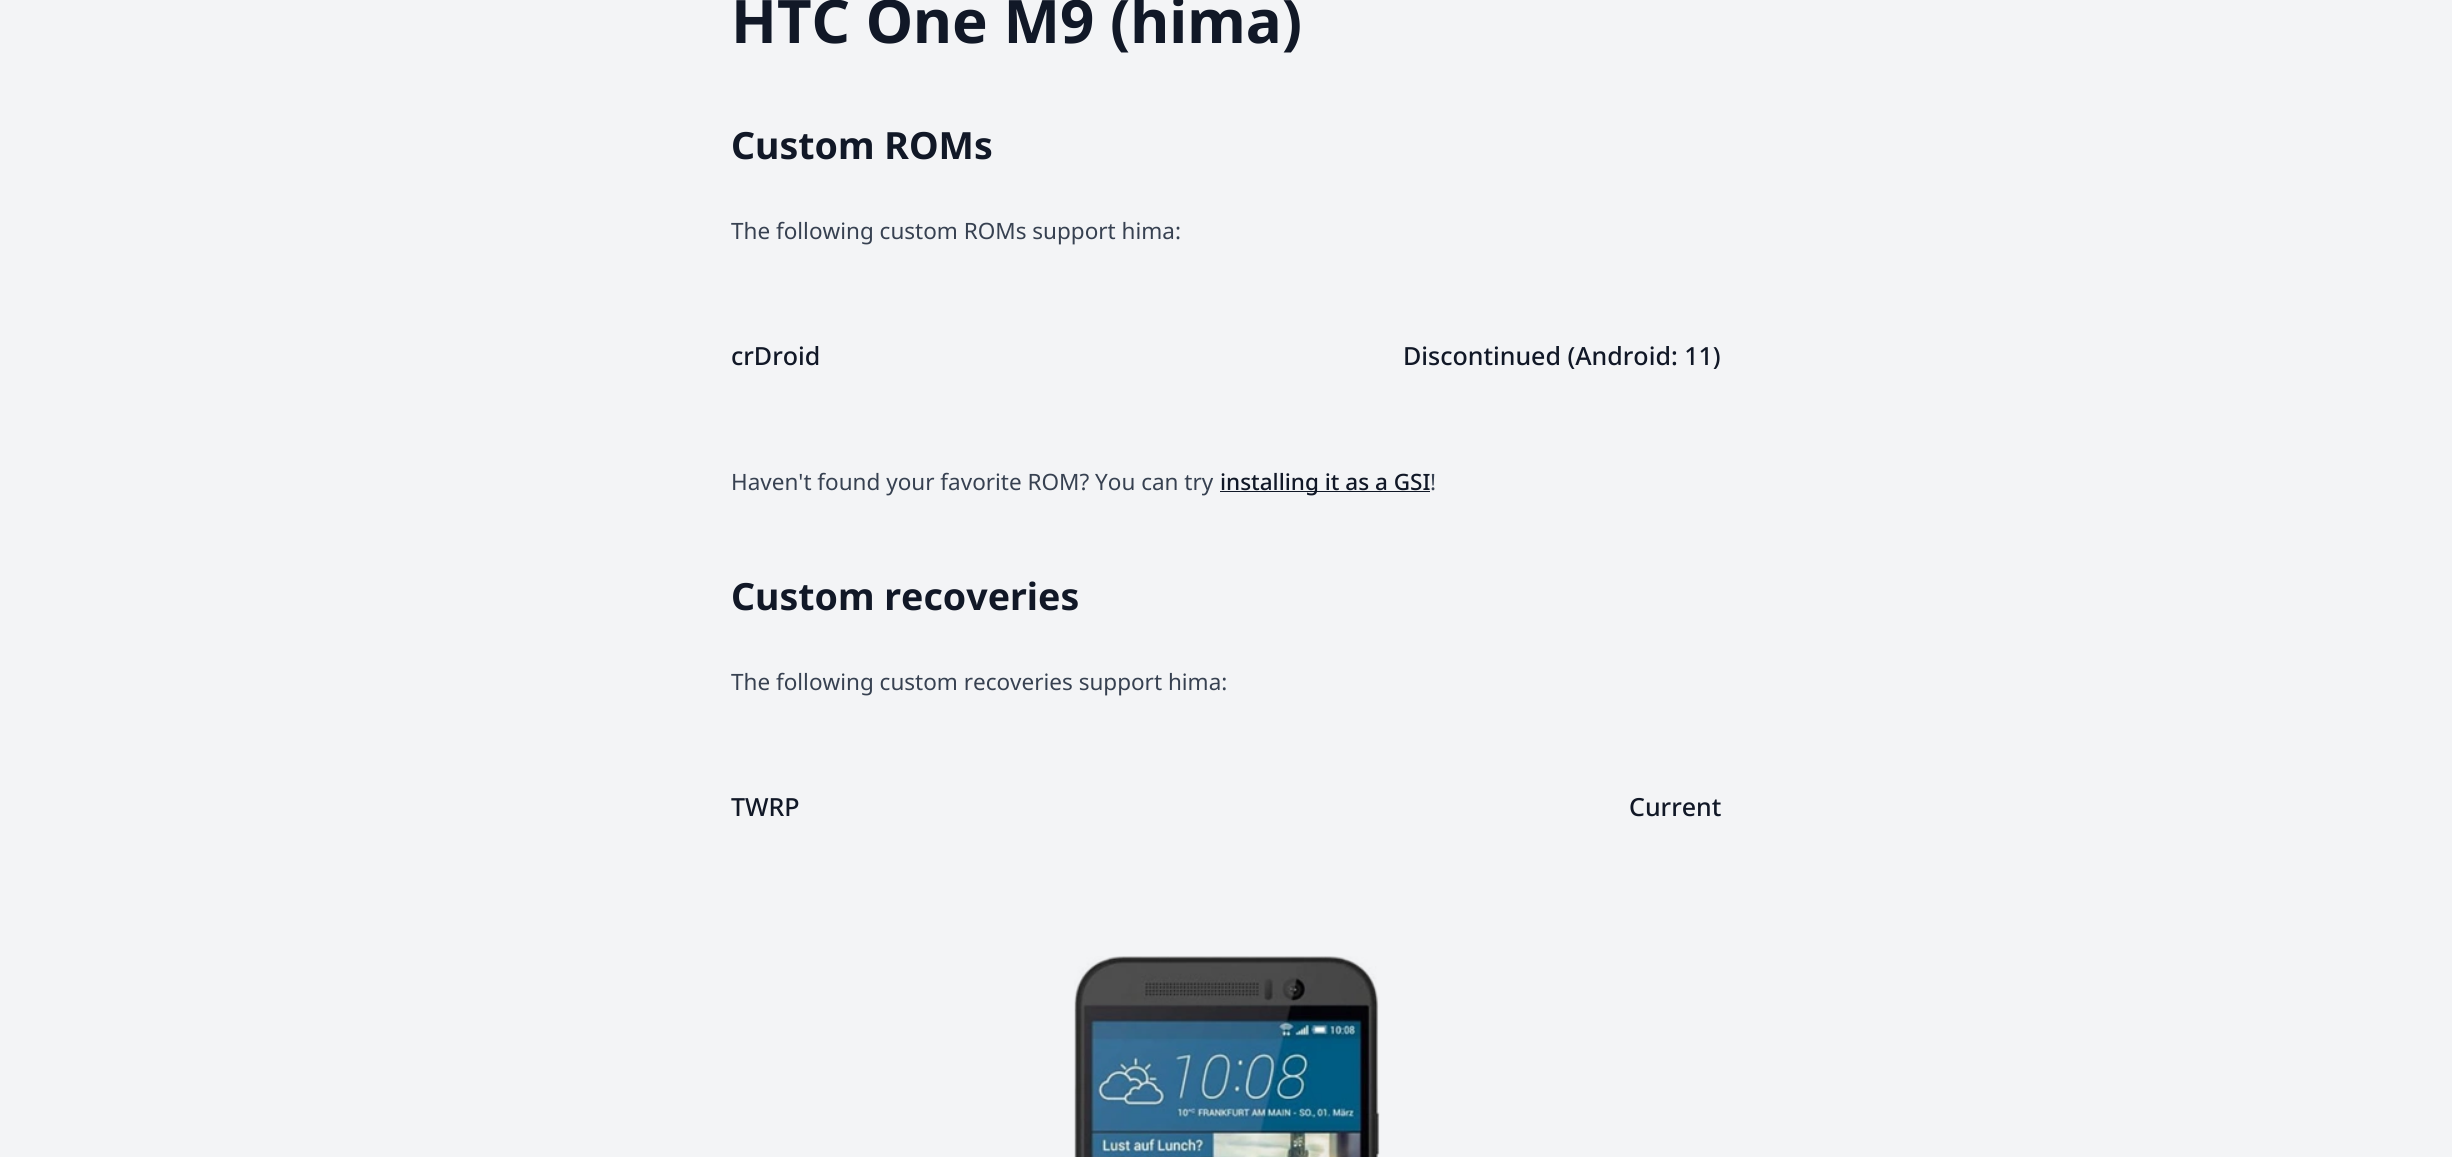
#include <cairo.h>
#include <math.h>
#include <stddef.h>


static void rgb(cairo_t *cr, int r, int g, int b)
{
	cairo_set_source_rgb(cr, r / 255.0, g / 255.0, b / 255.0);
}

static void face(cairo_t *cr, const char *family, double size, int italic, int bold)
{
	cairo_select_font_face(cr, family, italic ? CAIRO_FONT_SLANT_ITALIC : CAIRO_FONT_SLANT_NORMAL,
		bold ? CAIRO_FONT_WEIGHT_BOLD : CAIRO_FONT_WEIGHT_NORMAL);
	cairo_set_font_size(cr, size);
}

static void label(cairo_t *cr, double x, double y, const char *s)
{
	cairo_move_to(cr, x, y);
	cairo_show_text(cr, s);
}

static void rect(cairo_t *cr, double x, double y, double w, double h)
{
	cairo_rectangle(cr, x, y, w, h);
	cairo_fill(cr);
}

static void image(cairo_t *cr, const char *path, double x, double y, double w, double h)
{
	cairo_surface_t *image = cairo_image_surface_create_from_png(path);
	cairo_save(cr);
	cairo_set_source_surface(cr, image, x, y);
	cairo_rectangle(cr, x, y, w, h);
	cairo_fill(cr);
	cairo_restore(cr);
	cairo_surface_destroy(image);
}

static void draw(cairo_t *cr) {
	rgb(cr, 243, 244, 246);
	cairo_paint(cr);
	face(cr, "Noto Sans", 60, 0, 1);
	rgb(cr, 17, 24, 39);
	label(cr, 731, 43, "HTC One M9 (hima)");
	face(cr, "Noto Sans", 37.5, 0, 1);
	label(cr, 731, 159, "Custom ROMs");
	face(cr, "Noto Sans", 22.5, 0, 0);
	rgb(cr, 55, 65, 81);
	label(cr, 731, 239, "The following custom ROMs support hima:");
	face(cr, "Noto Sans Medium", 25, 0, 0);
	rgb(cr, 17, 24, 39);
	label(cr, 731, 365, "crDroid");
	label(cr, 1403, 365, "Discontinued (Android: 11)");
	face(cr, "Noto Sans", 22.5, 0, 0);
	rgb(cr, 55, 65, 81);
	label(cr, 731, 490, "Haven't found your favorite ROM? You can try");
	rgb(cr, 17, 24, 39);
	rect(cr, 1220, 491, 210, 1);
	face(cr, "Noto Sans Medium", 22.5, 0, 0);
	label(cr, 1220, 490, "installing it as a GSI");
	face(cr, "Noto Sans", 22.5, 0, 0);
	rgb(cr, 55, 65, 81);
	label(cr, 1430, 490, "!");
	face(cr, "Noto Sans", 37.5, 0, 1);
	rgb(cr, 17, 24, 39);
	label(cr, 731, 610, "Custom recoveries");
	face(cr, "Noto Sans", 22.5, 0, 0);
	rgb(cr, 55, 65, 81);
	label(cr, 731, 690, "The following custom recoveries support hima:");
	face(cr, "Noto Sans Medium", 25, 0, 0);
	rgb(cr, 17, 24, 39);
	label(cr, 731, 816, "TWRP");
	label(cr, 1629, 816, "Current");
	image(cr, "image0.png", 1074, 956, 306, 201);
}

int main(void) {
	cairo_surface_t *surface = cairo_image_surface_create(CAIRO_FORMAT_RGB24, 2452, 1157);
	cairo_t *cr = cairo_create(surface);
	cairo_font_options_t *options = cairo_font_options_create();
	cairo_font_options_set_hint_metrics(options, CAIRO_HINT_METRICS_OFF);
	cairo_font_options_set_hint_style(options, CAIRO_HINT_STYLE_NONE);
	cairo_set_font_options(cr, options);
	cairo_set_miter_limit(cr, 4);
	draw(cr);
	cairo_surface_write_to_png(surface, "render.png");
	cairo_font_options_destroy(options);
	cairo_destroy(cr);
	cairo_surface_destroy(surface);
	return 0;
}
